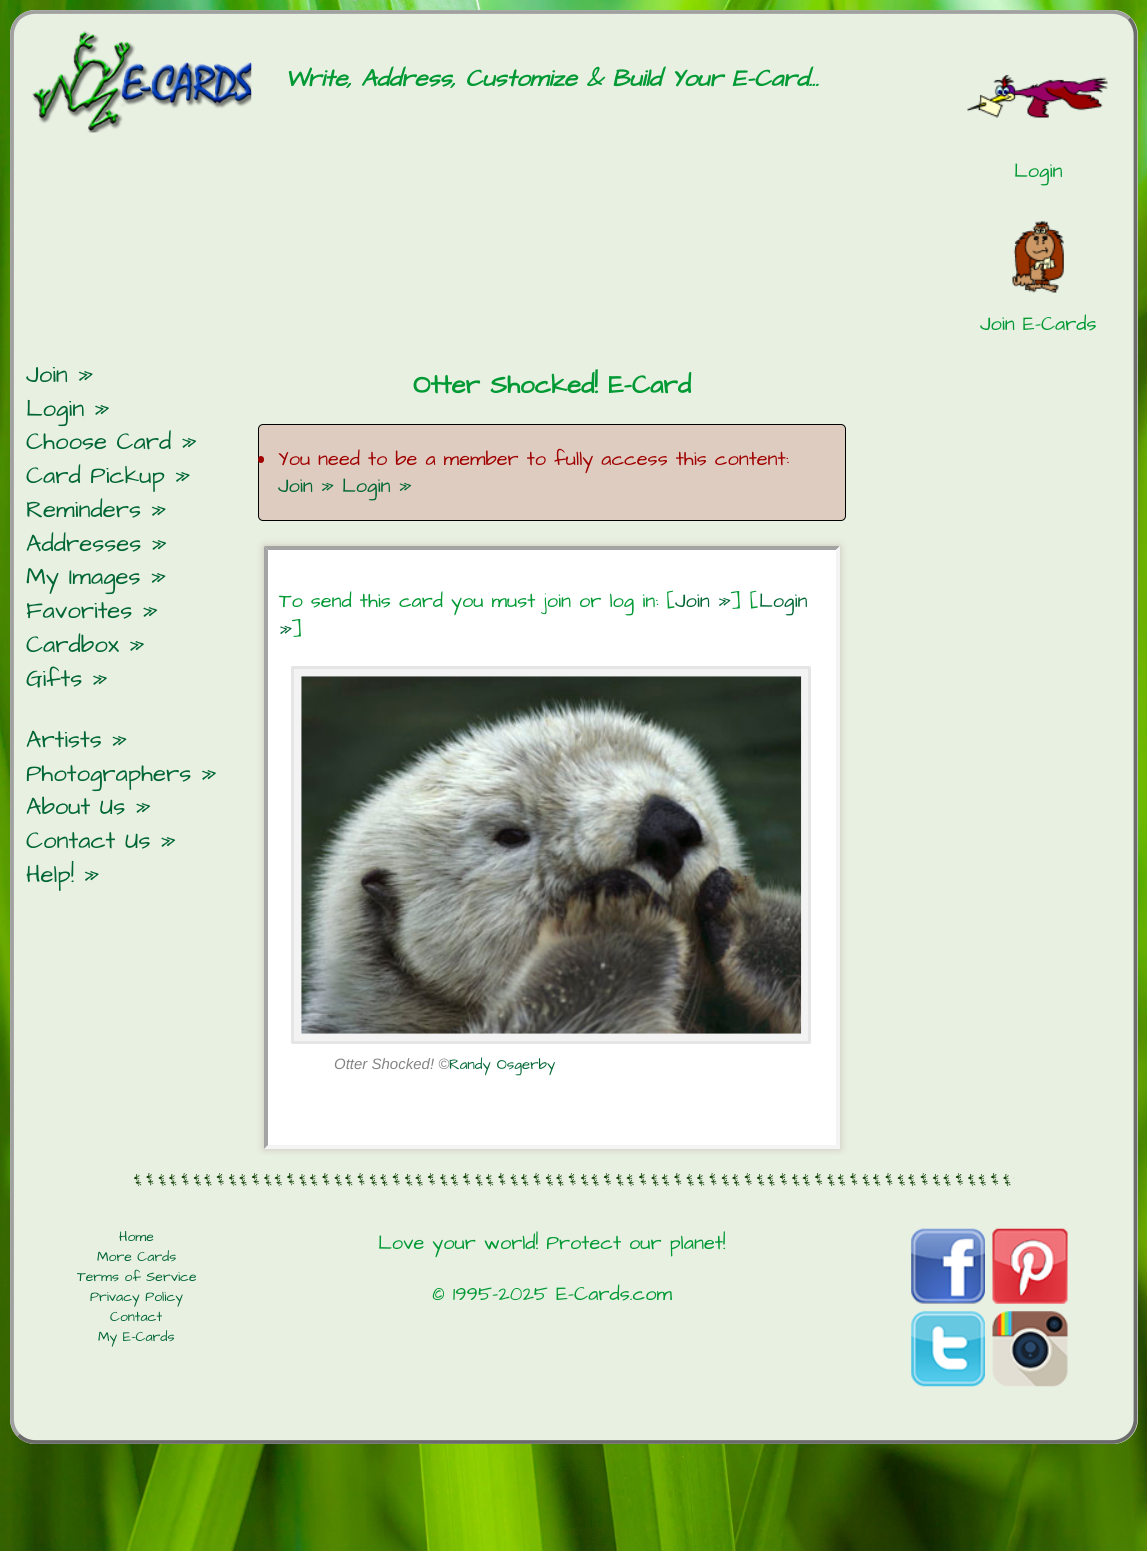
#include <cairo.h>
#include <math.h>
#include <stddef.h>


static void rgb(cairo_t *cr, int r, int g, int b)
{
	cairo_set_source_rgb(cr, r / 255.0, g / 255.0, b / 255.0);
}

static void face(cairo_t *cr, const char *family, double size, int italic, int bold)
{
	cairo_select_font_face(cr, family, italic ? CAIRO_FONT_SLANT_ITALIC : CAIRO_FONT_SLANT_NORMAL,
		bold ? CAIRO_FONT_WEIGHT_BOLD : CAIRO_FONT_WEIGHT_NORMAL);
	cairo_set_font_size(cr, size);
}

static void label(cairo_t *cr, double x, double y, const char *s)
{
	cairo_move_to(cr, x, y);
	cairo_show_text(cr, s);
}

static void rect(cairo_t *cr, double x, double y, double w, double h)
{
	cairo_rectangle(cr, x, y, w, h);
	cairo_fill(cr);
}

static void rrect(cairo_t *cr, double x, double y, double w, double h, double r)
{
	cairo_new_sub_path(cr);
	cairo_arc(cr, x + w - r, y + h - r, r, 0, M_PI / 2);
	cairo_arc(cr, x + r, y + h - r, r, M_PI / 2, M_PI);
	cairo_arc(cr, x + r, y + r, r, M_PI, 1.5 * M_PI);
	cairo_arc(cr, x + w - r, y + r, r, 1.5 * M_PI, 2 * M_PI);
	cairo_close_path(cr);
}

static void soft_shadow(cairo_t *cr, double x, double y, double w, double h, double r, double blur, double alpha)
{
	cairo_push_group_with_content(cr, CAIRO_CONTENT_ALPHA);
	cairo_set_operator(cr, CAIRO_OPERATOR_SOURCE);
	for (int i = 15; i >= -15 && fmin(w, h) + blur * i / 3 > 0; i -= 2) {
		double e = blur * i / 6;
		cairo_set_source_rgba(cr, 0, 0, 0, alpha * erfc((i - 1) / 8.5) / 2);
		rrect(cr, x - e, y - e, w + 2 * e, h + 2 * e, fmax(0, fmin(r + e + blur * .6, fmin(w, h) / 2 + e)));
		cairo_fill(cr);
	}
	cairo_pattern_t *soft = cairo_pop_group(cr);
	cairo_mask(cr, soft);
	cairo_pattern_destroy(soft);
}

static void image(cairo_t *cr, const char *path, double x, double y, double w, double h)
{
	cairo_surface_t *image = cairo_image_surface_create_from_png(path);
	cairo_save(cr);
	cairo_set_source_surface(cr, image, x, y);
	cairo_rectangle(cr, x, y, w, h);
	cairo_fill(cr);
	cairo_restore(cr);
	cairo_surface_destroy(image);
}

static void draw(cairo_t *cr) {
	rgb(cr, 255, 255, 255);
	cairo_paint(cr);
	image(cr, "image0.png", 0, 0, 1147, 1551);
	rgb(cr, 232, 240, 226);
	rrect(cr, 10, 10, 1128, 1434, 25);
	cairo_fill(cr);
	cairo_new_path(cr);
	cairo_move_to(cr, 1129, 18.5);
	cairo_curve_to(cr, 1133, 23, 1135.5, 29, 1135.5, 35);
	cairo_line_to(cr, 1135.5, 1419);
	cairo_curve_to(cr, 1135.5, 1425, 1133, 1431, 1129, 1435);
	cairo_curve_to(cr, 1124.5, 1439.5, 1118.5, 1442, 1112.5, 1442);
	cairo_line_to(cr, 35, 1442);
	cairo_curve_to(cr, 29, 1442, 23, 1439.5, 18.5, 1435);
	rgb(cr, 107, 107, 107);
	cairo_set_line_width(cr, 3.8);
	cairo_stroke(cr);
	cairo_new_path(cr);
	cairo_move_to(cr, 18.5, 1435);
	cairo_curve_to(cr, 14.5, 1431, 12, 1425, 12, 1419);
	cairo_line_to(cr, 12, 35);
	cairo_curve_to(cr, 12, 29, 14.5, 23, 18.5, 18.5);
	cairo_curve_to(cr, 23, 14.5, 29, 12, 35, 12);
	cairo_line_to(cr, 1112.5, 12);
	cairo_curve_to(cr, 1118.5, 12, 1124.5, 14.5, 1129, 18.5);
	rgb(cr, 160, 160, 160);
	cairo_stroke(cr);
	image(cr, "image1.png", 32, 31, 220, 102);
	face(cr, "Architects Daughter", 24, 1, 1);
	rgb(cr, 0, 153, 51);
	label(cr, 285, 86, "Write, Address, Customize & Build Your E-Card...");
	image(cr, "image2.png", 967, 74, 141, 44);
	face(cr, "Architects Daughter", 20, 0, 0);
	label(cr, 1014, 177, "Login");
	image(cr, "image3.png", 1012, 221, 52, 72);
	label(cr, 980, 330, "Join E-Cards");
	face(cr, "Architects Daughter", 24, 0, 0);
	rgb(cr, 0, 102, 51);
	label(cr, 26, 382, "Join »");
	label(cr, 26, 416, "Login »");
	label(cr, 26, 449, "Choose Card »");
	label(cr, 26, 483, "Card Pickup »");
	label(cr, 26, 517, "Reminders »");
	label(cr, 26, 551, "Addresses »");
	label(cr, 26, 584, "My Images »");
	label(cr, 26, 618, "Favorites »");
	label(cr, 26, 652, "Cardbox »");
	label(cr, 26, 686, "Gifts »");
	label(cr, 26, 747, "Artists »");
	label(cr, 26, 781, "Photographers »");
	label(cr, 26, 814, "About Us »");
	label(cr, 26, 848, "Contact Us »");
	label(cr, 26, 882, "Help! »");
	face(cr, "Architects Daughter", 26, 0, 1);
	rgb(cr, 0, 153, 51);
	label(cr, 413, 393, "Otter Shocked! E-Card");
	rgb(cr, 222, 204, 192);
	rrect(cr, 258.5, 424.5, 587, 96, 4.5);
	cairo_fill_preserve(cr);
	rgb(cr, 0, 0, 0);
	cairo_set_line_width(cr, 1);
	cairo_stroke(cr);
	rgb(cr, 159, 0, 0);
	rrect(cr, 258, 456, 6, 7, 3);
	cairo_fill(cr);
	face(cr, "Architects Daughter", 20, 0, 0);
	label(cr, 278, 465, "You need to be a member to fully access this content:");
	rgb(cr, 0, 102, 51);
	label(cr, 278, 492, "Join » Login »");
	cairo_save(cr);
	cairo_rectangle(cr, 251, 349, 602, 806);
	cairo_clip(cr);
	rgb(cr, 201, 196, 183);
	soft_shadow(cr, 264, 546, 576, 603, 0, 4, 1);
	cairo_restore(cr);
	rgb(cr, 255, 255, 255);
	rect(cr, 264, 546, 576, 603);
	rgb(cr, 163, 163, 163);
	cairo_new_path(cr);
	cairo_move_to(cr, 264, 546);
	cairo_line_to(cr, 840, 546);
	cairo_line_to(cr, 836, 550);
	cairo_line_to(cr, 268, 550);
	cairo_close_path(cr);
	cairo_fill(cr);
	rgb(cr, 244, 244, 244);
	cairo_new_path(cr);
	cairo_move_to(cr, 840, 546);
	cairo_line_to(cr, 840, 1149);
	cairo_line_to(cr, 836, 1145);
	cairo_line_to(cr, 836, 550);
	cairo_close_path(cr);
	cairo_fill(cr);
	cairo_new_path(cr);
	cairo_move_to(cr, 840, 1149);
	cairo_line_to(cr, 264, 1149);
	cairo_line_to(cr, 268, 1145);
	cairo_line_to(cr, 836, 1145);
	cairo_close_path(cr);
	cairo_fill(cr);
	rgb(cr, 163, 163, 163);
	cairo_new_path(cr);
	cairo_move_to(cr, 264, 1149);
	cairo_line_to(cr, 264, 546);
	cairo_line_to(cr, 268, 550);
	cairo_line_to(cr, 268, 1145);
	cairo_close_path(cr);
	cairo_fill(cr);
	rgb(cr, 0, 153, 51);
	label(cr, 279, 607, "To send this card you must join or log in: [");
	rgb(cr, 0, 102, 51);
	label(cr, 675, 607, "Join »");
	rgb(cr, 0, 153, 51);
	label(cr, 731, 607, "] [");
	rgb(cr, 0, 102, 51);
	label(cr, 759, 607, "Login");
	label(cr, 279, 635, "»");
	rgb(cr, 0, 153, 51);
	label(cr, 292, 635, "]");
	rgb(cr, 243, 243, 243);
	rrect(cr, 291, 666, 520, 378, 2.5);
	cairo_fill(cr);
	cairo_rectangle(cr, 292.5, 667.5, 517, 375);
	cairo_set_source_rgba(cr, 0, 0, 0, 0.06);
	cairo_set_line_width(cr, 3);
	cairo_stroke(cr);
	image(cr, "image4.png", 301, 676, 501, 358);
	face(cr, "Liberation Sans", 15, 1, 0);
	rgb(cr, 132, 132, 132);
	label(cr, 334, 1069, "Otter Shocked! ©");
	face(cr, "Architects Daughter", 15, 0, 0);
	rgb(cr, 0, 102, 51);
	label(cr, 449, 1069, "Randy Osgerby");
	image(cr, "image5.png", 134, 1173, 880, 14);
	face(cr, "Architects Daughter", 14, 0, 0);
	label(cr, 119, 1241, "Home");
	label(cr, 97, 1261, "More Cards");
	label(cr, 77, 1281, "Terms of Service");
	label(cr, 90, 1301, "Privacy Policy");
	label(cr, 110, 1321, "Contact");
	label(cr, 98, 1341, "My E-Cards");
	face(cr, "Architects Daughter", 20, 0, 0);
	rgb(cr, 0, 153, 51);
	label(cr, 378, 1249, "Love your world! Protect our planet!");
	label(cr, 432, 1300, "© 1995-2025 E-Cards.com");
	image(cr, "image6.png", 911, 1228, 74, 76);
	image(cr, "image7.png", 992, 1228, 76, 76);
	image(cr, "image8.png", 911, 1311, 74, 76);
	image(cr, "image9.png", 992, 1311, 76, 76);
}

int main(void) {
	cairo_surface_t *surface = cairo_image_surface_create(CAIRO_FORMAT_RGB24, 1147, 1551);
	cairo_t *cr = cairo_create(surface);
	cairo_font_options_t *options = cairo_font_options_create();
	cairo_font_options_set_hint_metrics(options, CAIRO_HINT_METRICS_OFF);
	cairo_font_options_set_hint_style(options, CAIRO_HINT_STYLE_NONE);
	cairo_set_font_options(cr, options);
	cairo_set_miter_limit(cr, 4);
	draw(cr);
	cairo_surface_write_to_png(surface, "render.png");
	cairo_font_options_destroy(options);
	cairo_destroy(cr);
	cairo_surface_destroy(surface);
	return 0;
}
